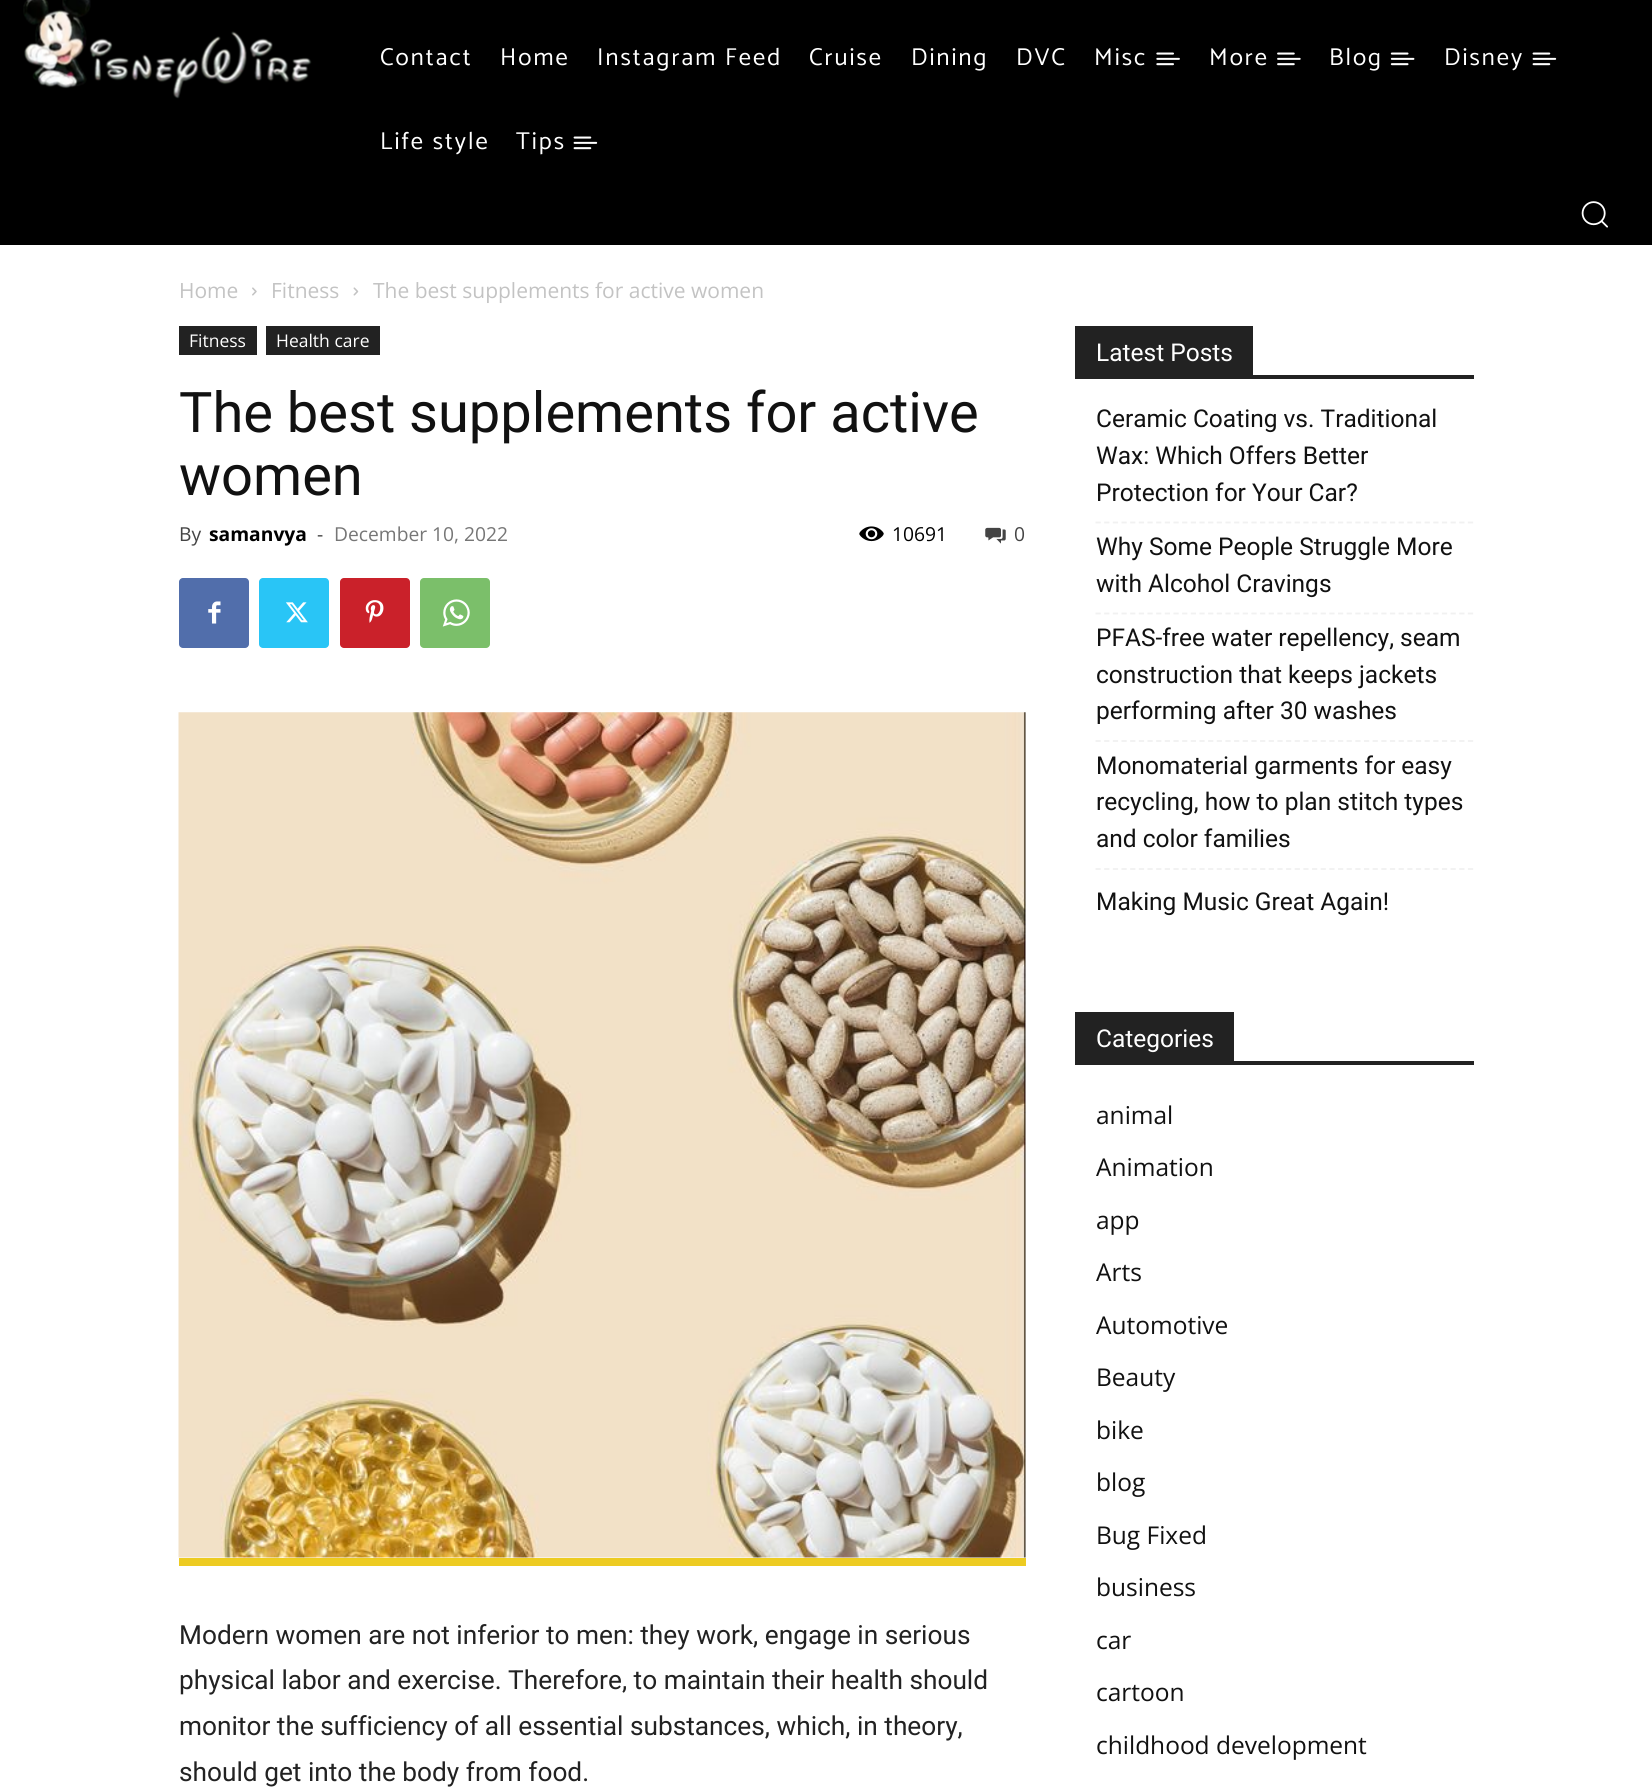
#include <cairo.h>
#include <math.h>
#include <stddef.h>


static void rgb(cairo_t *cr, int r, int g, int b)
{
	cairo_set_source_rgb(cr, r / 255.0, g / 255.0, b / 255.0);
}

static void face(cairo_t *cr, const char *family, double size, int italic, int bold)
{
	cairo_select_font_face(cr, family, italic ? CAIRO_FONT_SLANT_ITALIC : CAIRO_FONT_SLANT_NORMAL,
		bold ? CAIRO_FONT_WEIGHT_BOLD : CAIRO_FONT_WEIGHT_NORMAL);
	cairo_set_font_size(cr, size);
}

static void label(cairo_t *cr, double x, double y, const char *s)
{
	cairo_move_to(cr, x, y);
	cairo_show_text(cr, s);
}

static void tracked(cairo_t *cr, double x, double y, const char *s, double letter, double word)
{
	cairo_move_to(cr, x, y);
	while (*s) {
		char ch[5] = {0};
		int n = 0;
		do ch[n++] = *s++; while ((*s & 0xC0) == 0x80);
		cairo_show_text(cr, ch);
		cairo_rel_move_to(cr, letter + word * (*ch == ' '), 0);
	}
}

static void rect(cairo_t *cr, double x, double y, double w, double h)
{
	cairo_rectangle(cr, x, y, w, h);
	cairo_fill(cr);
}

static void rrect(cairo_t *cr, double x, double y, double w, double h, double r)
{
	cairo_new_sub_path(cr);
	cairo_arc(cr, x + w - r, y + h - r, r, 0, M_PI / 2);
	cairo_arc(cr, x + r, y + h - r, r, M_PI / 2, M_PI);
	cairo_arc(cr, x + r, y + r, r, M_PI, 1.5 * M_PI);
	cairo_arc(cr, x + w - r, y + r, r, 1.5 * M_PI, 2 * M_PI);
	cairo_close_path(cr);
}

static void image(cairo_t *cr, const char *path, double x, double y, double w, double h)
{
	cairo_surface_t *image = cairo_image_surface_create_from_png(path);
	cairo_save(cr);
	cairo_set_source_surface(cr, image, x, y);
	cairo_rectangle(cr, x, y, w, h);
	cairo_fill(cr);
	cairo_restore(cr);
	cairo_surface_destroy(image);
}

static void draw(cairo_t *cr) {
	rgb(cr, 255, 255, 255);
	cairo_paint(cr);
	rgb(cr, 0, 0, 0);
	rect(cr, 0, 0, 1652, 245);
	image(cr, "image0.png", 23, 0, 289, 99);
	face(cr, "Catamaran", 24.5, 0, 0);
	rgb(cr, 255, 255, 255);
	tracked(cr, 380, 65, "Contact", 2, 0);
	tracked(cr, 500, 65, "Home", 2, 0);
	tracked(cr, 597, 65, "Instagram Feed", 2, 0);
	tracked(cr, 809, 65, "Cruise", 2, 0);
	tracked(cr, 911, 65, "Dining", 2, 0);
	tracked(cr, 1016, 65, "DVC", 2, 0);
	tracked(cr, 1094, 65, "Misc", 2, 0);
	image(cr, "image1.png", 1156, 52, 24, 14);
	tracked(cr, 1209, 65, "More", 2, 0);
	image(cr, "image2.png", 1277, 52, 24, 14);
	tracked(cr, 1329, 65, "Blog", 2, 0);
	image(cr, "image3.png", 1390, 52, 25, 14);
	tracked(cr, 1444, 65, "Disney", 2, 0);
	image(cr, "image4.png", 1532, 52, 25, 14);
	tracked(cr, 380, 149, "Life style", 2, 0);
	tracked(cr, 516, 149, "Tips", 2, 0);
	image(cr, "image4.png", 573, 136, 25, 14);
	image(cr, "image5.png", 1581, 201, 27, 27);
	face(cr, "Open Sans", 21, 0, 0);
	rgb(cr, 195, 195, 195);
	label(cr, 179, 298, "Home");
	image(cr, "image6.png", 252, 287, 5, 9);
	label(cr, 271, 298, "Fitness");
	image(cr, "image7.png", 353, 287, 6, 9);
	label(cr, 373, 298, "The best supplements for active women");
	rgb(cr, 34, 34, 34);
	rect(cr, 179, 326, 78, 29);
	face(cr, "Open Sans", 17.5, 0, 0);
	rgb(cr, 255, 255, 255);
	label(cr, 189, 347, "Fitness");
	rgb(cr, 34, 34, 34);
	rect(cr, 266, 326, 114, 29);
	rgb(cr, 255, 255, 255);
	label(cr, 276, 347, "Health care");
	face(cr, "Roboto", 56, 0, 0);
	rgb(cr, 17, 17, 17);
	label(cr, 179, 432, "The best supplements for active");
	label(cr, 179, 495, "women");
	face(cr, "Open Sans", 19.25, 0, 0);
	rgb(cr, 68, 68, 68);
	label(cr, 179, 541, "By");
	face(cr, "Open Sans", 19.25, 0, 1);
	rgb(cr, 0, 0, 0);
	label(cr, 209, 541, "samanvya");
	face(cr, "Open Sans", 19.25, 0, 0);
	rgb(cr, 68, 68, 68);
	label(cr, 317, 541, "-");
	rgb(cr, 118, 118, 118);
	label(cr, 334, 541, "December 10, 2022");
	image(cr, "image8.png", 859, 526, 25, 16);
	rgb(cr, 0, 0, 0);
	label(cr, 892, 541, "10691");
	image(cr, "image9.png", 985, 527, 21, 17);
	rgb(cr, 68, 68, 68);
	label(cr, 1014, 541, "0");
	rgb(cr, 81, 110, 171);
	rrect(cr, 179, 578, 70, 70, 4);
	cairo_fill(cr);
	image(cr, "image10.png", 208, 601, 13, 23);
	rgb(cr, 41, 197, 246);
	rrect(cr, 259, 578, 70, 70, 4);
	cairo_fill(cr);
	image(cr, "image11.png", 286, 602, 22, 21);
	rgb(cr, 202, 33, 42);
	rrect(cr, 340, 578, 70, 70, 4);
	cairo_fill(cr);
	image(cr, "image12.png", 365, 600, 19, 23);
	rgb(cr, 123, 191, 106);
	rrect(cr, 420, 578, 70, 70, 4);
	cairo_fill(cr);
	image(cr, "image13.png", 442, 599, 28, 28);
	rgb(cr, 237, 203, 33);
	rect(cr, 179, 1558, 847, 8);
	image(cr, "image14.png", 178, 712, 848, 846);
	face(cr, "Roboto", 26.25, 0, 0);
	rgb(cr, 34, 34, 34);
	label(cr, 179, 1644, "Modern women are not inferior to men: they work, engage in serious");
	label(cr, 179, 1689, "physical labor and exercise. Therefore, to maintain their health should");
	label(cr, 179, 1735, "monitor the sufficiency of all essential substances, which, in theory,");
	label(cr, 179, 1781, "should get into the body from food.");
	rect(cr, 1075, 375, 399, 4);
	rect(cr, 1075, 326, 178, 49);
	face(cr, "Roboto", 24.5, 0, 0);
	rgb(cr, 255, 255, 255);
	label(cr, 1096, 361, "Latest Posts");
	cairo_new_path(cr);
	cairo_move_to(cr, 1095.5, 522.5);
	cairo_line_to(cr, 1473.5, 522.5);
	rgb(cr, 241, 241, 241);
	cairo_set_line_width(cr, 1.8);
	cairo_set_dash(cr, (double[]){5.25, 3.41}, 2, 0);
	cairo_stroke(cr);
	rgb(cr, 17, 17, 17);
	label(cr, 1096, 427, "Ceramic Coating vs. Traditional");
	label(cr, 1096, 464, "Wax: Which Offers Better");
	label(cr, 1096, 501, "Protection for Your Car?");
	cairo_new_path(cr);
	cairo_move_to(cr, 1095.5, 613.5);
	cairo_line_to(cr, 1473.5, 613.5);
	rgb(cr, 241, 241, 241);
	cairo_stroke(cr);
	rgb(cr, 17, 17, 17);
	label(cr, 1096, 555, "Why Some People Struggle More");
	label(cr, 1096, 592, "with Alcohol Cravings");
	cairo_new_path(cr);
	cairo_move_to(cr, 1095.5, 741);
	cairo_line_to(cr, 1473.5, 741);
	rgb(cr, 241, 241, 241);
	cairo_stroke(cr);
	rgb(cr, 17, 17, 17);
	label(cr, 1096, 646, "PFAS-free water repellency, seam");
	label(cr, 1096, 683, "construction that keeps jackets");
	label(cr, 1096, 719, "performing after 30 washes");
	cairo_new_path(cr);
	cairo_move_to(cr, 1095.5, 869);
	cairo_line_to(cr, 1473.5, 869);
	rgb(cr, 241, 241, 241);
	cairo_stroke(cr);
	rgb(cr, 17, 17, 17);
	label(cr, 1096, 774, "Monomaterial garments for easy");
	label(cr, 1096, 810, "recycling, how to plan stitch types");
	label(cr, 1096, 847, "and color families");
	label(cr, 1096, 910, "Making Music Great Again!");
	rgb(cr, 34, 34, 34);
	rect(cr, 1075, 1061, 399, 4);
	rect(cr, 1075, 1012, 159, 49);
	rgb(cr, 255, 255, 255);
	label(cr, 1096, 1047, "Categories");
	face(cr, "Open Sans", 24.5, 0, 0);
	rgb(cr, 17, 17, 17);
	label(cr, 1096, 1124, "animal");
	label(cr, 1096, 1176, "Animation");
	label(cr, 1096, 1229, "app");
	label(cr, 1096, 1281, "Arts");
	label(cr, 1096, 1334, "Automotive");
	label(cr, 1096, 1386, "Beauty");
	label(cr, 1096, 1439, "bike");
	label(cr, 1096, 1491, "blog");
	label(cr, 1096, 1544, "Bug Fixed");
	label(cr, 1096, 1596, "business");
	label(cr, 1096, 1649, "car");
	label(cr, 1096, 1701, "cartoon");
	label(cr, 1096, 1754, "childhood development");
}

int main(void) {
	cairo_surface_t *surface = cairo_image_surface_create(CAIRO_FORMAT_RGB24, 1652, 1787);
	cairo_t *cr = cairo_create(surface);
	cairo_font_options_t *options = cairo_font_options_create();
	cairo_font_options_set_hint_metrics(options, CAIRO_HINT_METRICS_OFF);
	cairo_font_options_set_hint_style(options, CAIRO_HINT_STYLE_NONE);
	cairo_set_font_options(cr, options);
	cairo_set_miter_limit(cr, 4);
	draw(cr);
	cairo_surface_write_to_png(surface, "render.png");
	cairo_font_options_destroy(options);
	cairo_destroy(cr);
	cairo_surface_destroy(surface);
	return 0;
}
